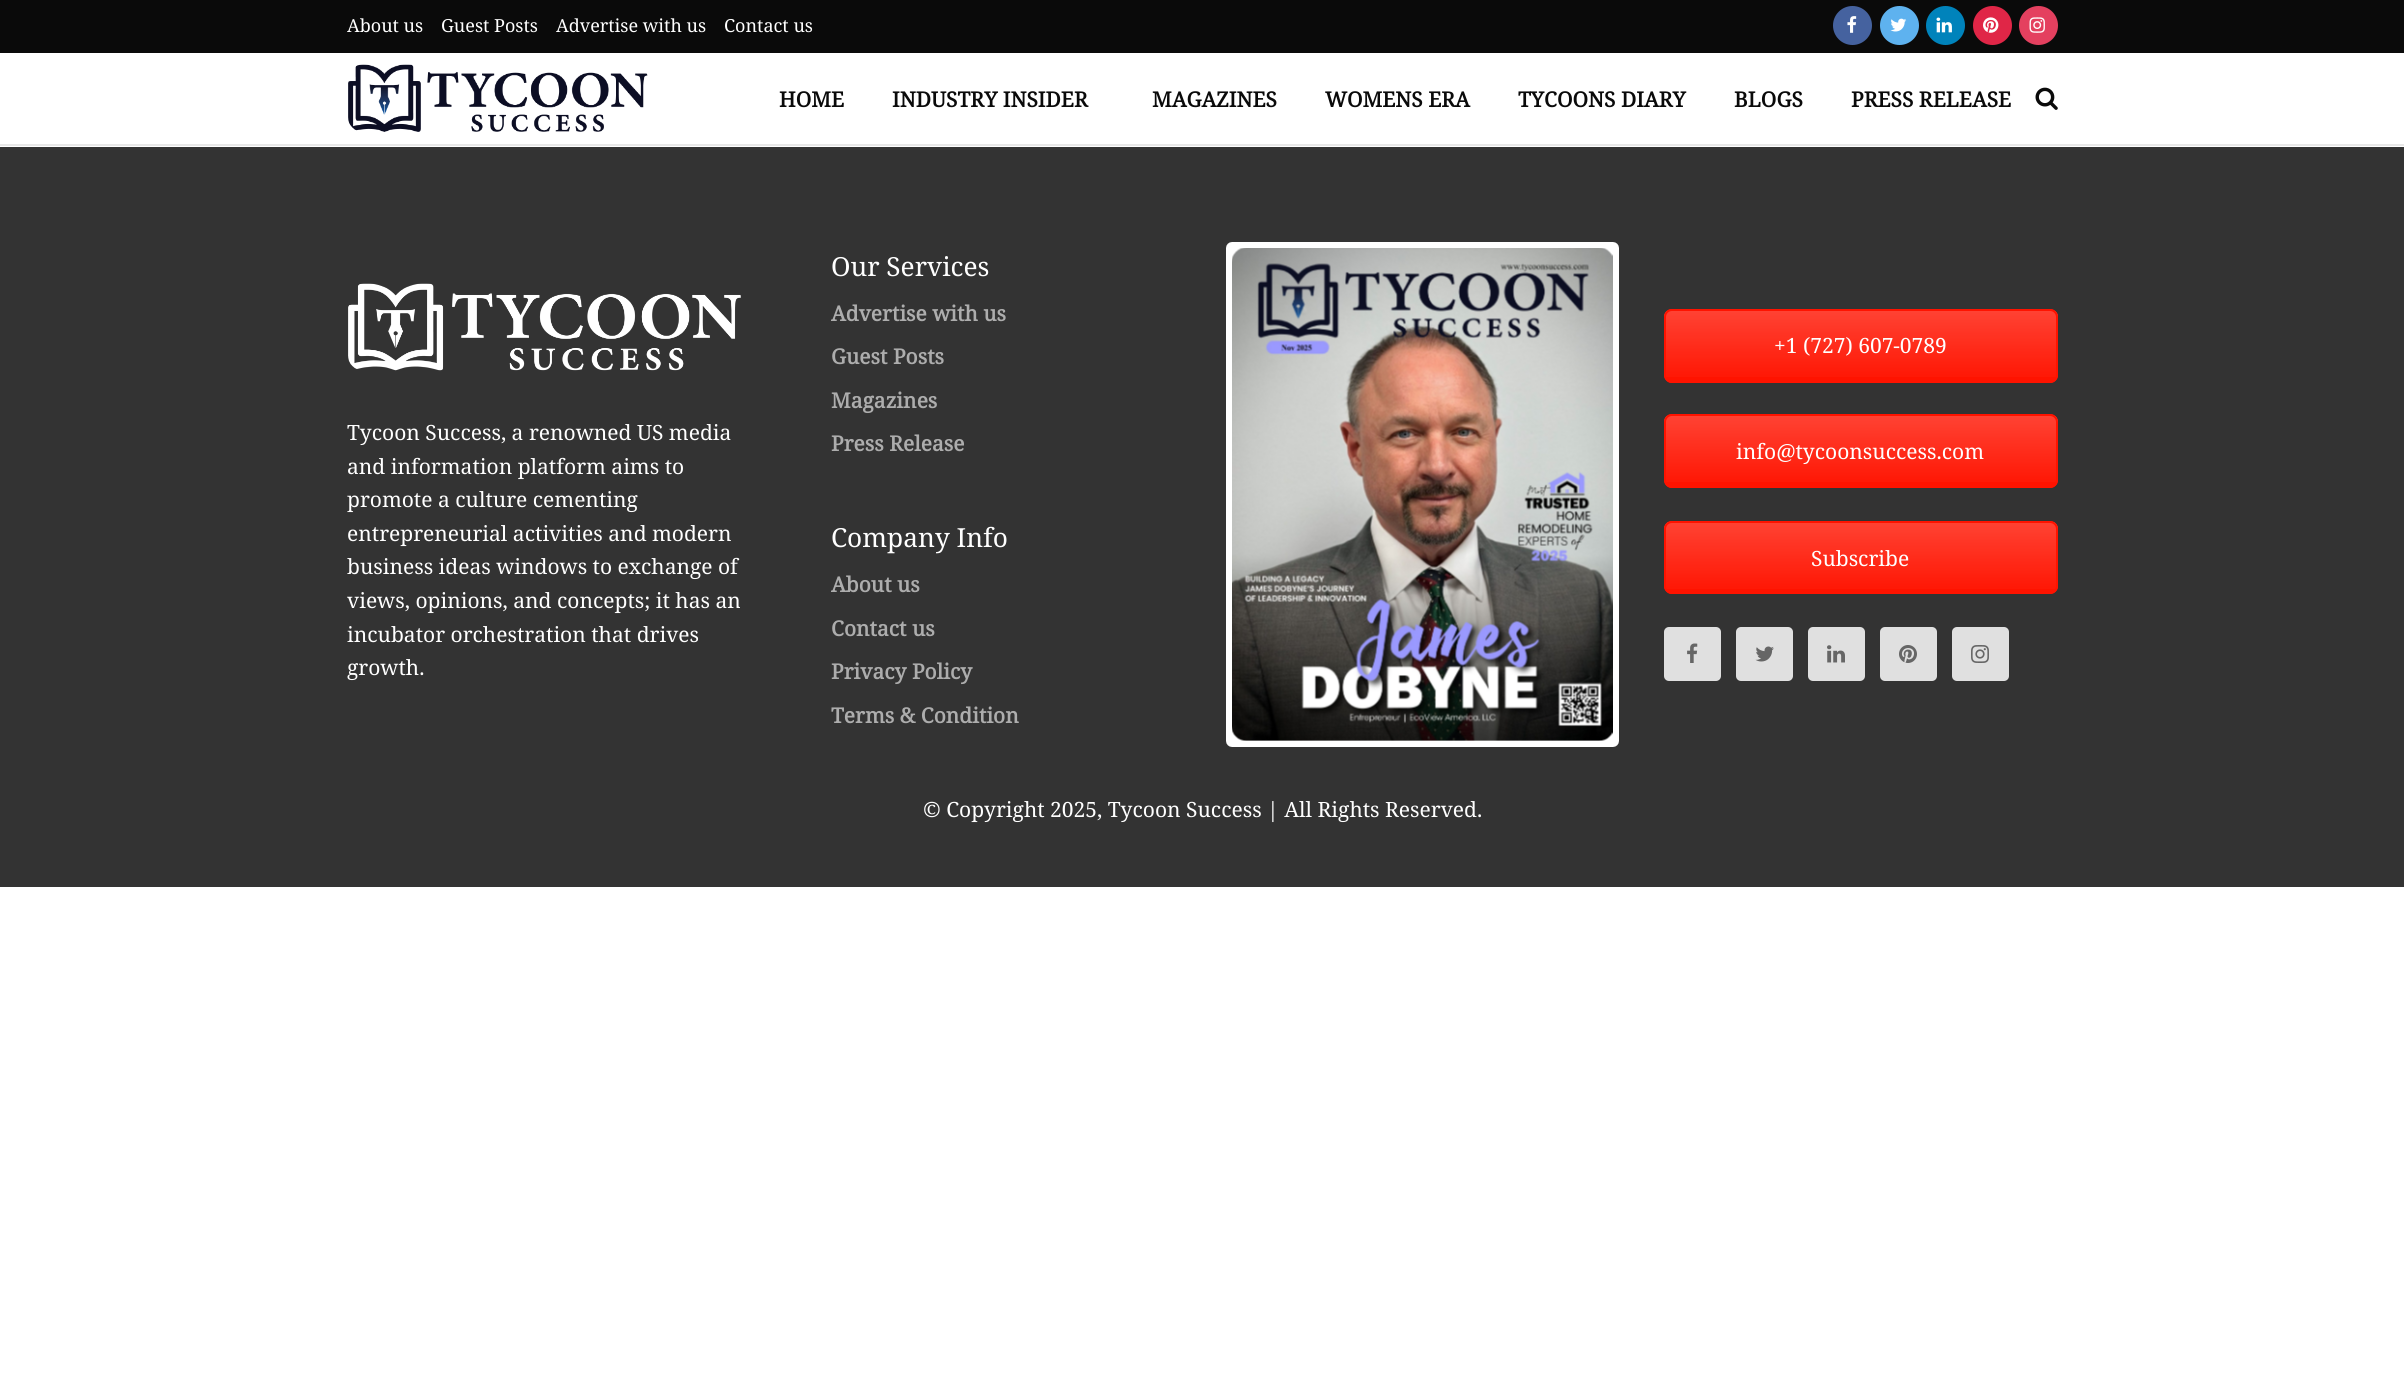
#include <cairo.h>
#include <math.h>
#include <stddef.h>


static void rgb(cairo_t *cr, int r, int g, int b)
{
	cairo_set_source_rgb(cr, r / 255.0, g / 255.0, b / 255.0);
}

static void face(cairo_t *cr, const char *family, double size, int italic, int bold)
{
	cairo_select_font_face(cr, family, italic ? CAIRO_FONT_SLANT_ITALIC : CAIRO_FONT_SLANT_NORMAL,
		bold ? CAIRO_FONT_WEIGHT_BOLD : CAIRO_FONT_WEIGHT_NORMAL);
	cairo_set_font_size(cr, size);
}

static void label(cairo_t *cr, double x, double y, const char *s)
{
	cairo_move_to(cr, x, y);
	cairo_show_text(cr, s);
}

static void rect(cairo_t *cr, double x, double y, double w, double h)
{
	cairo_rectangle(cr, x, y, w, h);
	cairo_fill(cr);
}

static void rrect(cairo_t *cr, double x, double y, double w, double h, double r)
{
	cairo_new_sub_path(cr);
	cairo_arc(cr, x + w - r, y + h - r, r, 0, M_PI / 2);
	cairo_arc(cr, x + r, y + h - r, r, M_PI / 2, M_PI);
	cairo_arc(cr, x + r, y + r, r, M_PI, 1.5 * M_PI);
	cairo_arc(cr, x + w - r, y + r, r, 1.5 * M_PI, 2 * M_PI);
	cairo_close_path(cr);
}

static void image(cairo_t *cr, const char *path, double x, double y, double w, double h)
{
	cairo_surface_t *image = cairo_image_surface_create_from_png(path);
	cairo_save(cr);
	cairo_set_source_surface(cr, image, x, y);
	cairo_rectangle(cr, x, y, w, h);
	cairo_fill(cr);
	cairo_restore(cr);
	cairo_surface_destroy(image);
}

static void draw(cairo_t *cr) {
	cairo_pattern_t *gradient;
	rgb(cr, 255, 255, 255);
	cairo_paint(cr);
	rgb(cr, 10, 10, 10);
	rect(cr, 0, 0, 2404, 53);
	face(cr, "Noto Serif", 18, 0, 0);
	rgb(cr, 255, 255, 255);
	label(cr, 347, 32, "About us");
	label(cr, 441, 32, "Guest Posts");
	label(cr, 556, 32, "Advertise with us");
	label(cr, 724, 32, "Contact us");
	rgb(cr, 69, 98, 159);
	cairo_new_path(cr);
	cairo_arc(cr, 1852.5, 25.5, 19.5, 0, 2 * M_PI);
	cairo_fill(cr);
	image(cr, "image0.png", 1847, 16, 10, 17);
	rgb(cr, 94, 178, 239);
	cairo_arc(cr, 1899.5, 25.5, 19.5, 0, 2 * M_PI);
	cairo_fill(cr);
	image(cr, "image1.png", 1890, 18, 17, 14);
	rgb(cr, 0, 131, 187);
	cairo_arc(cr, 1945.5, 25.5, 19.5, 0, 2 * M_PI);
	cairo_fill(cr);
	image(cr, "image2.png", 1936, 17, 16, 16);
	rgb(cr, 224, 38, 71);
	cairo_arc(cr, 1992.5, 25.5, 19.5, 0, 2 * M_PI);
	cairo_fill(cr);
	image(cr, "image3.png", 1983, 17, 16, 16);
	rgb(cr, 228, 64, 95);
	cairo_arc(cr, 2038.5, 25.5, 19.5, 0, 2 * M_PI);
	cairo_fill(cr);
	image(cr, "image4.png", 2029, 17, 16, 16);
	rgb(cr, 232, 232, 232);
	rect(cr, 0, 144, 2404, 2);
	image(cr, "image5.png", 348, 64, 300, 68);
	face(cr, "Noto Serif", 21, 0, 1);
	rgb(cr, 10, 10, 10);
	label(cr, 779, 107, "HOME");
	label(cr, 892, 107, "INDUSTRY INSIDER");
	label(cr, 1152, 107, "MAGAZINES");
	label(cr, 1325, 107, "WOMENS ERA");
	label(cr, 1518, 107, "TYCOONS DIARY");
	label(cr, 1734, 107, "BLOGS");
	label(cr, 1851, 107, "PRESS RELEASE");
	image(cr, "image6.png", 2035, 87, 23, 23);
	rgb(cr, 51, 51, 51);
	rect(cr, 0, 147, 2404, 740);
	image(cr, "image7.png", 348, 283, 393, 88);
	face(cr, "Noto Serif", 21, 0, 0);
	rgb(cr, 255, 255, 255);
	label(cr, 347, 440, "Tycoon Success, a renowned US media");
	label(cr, 347, 474, "and information platform aims to");
	label(cr, 347, 507, "promote a culture cementing");
	label(cr, 347, 541, "entrepreneurial activities and modern");
	label(cr, 347, 574, "business ideas windows to exchange of");
	label(cr, 347, 608, "views, opinions, and concepts; it has an");
	label(cr, 347, 642, "incubator orchestration that drives");
	label(cr, 347, 675, "growth.");
	face(cr, "Noto Serif", 26.25, 0, 0);
	label(cr, 831, 276, "Our Services");
	face(cr, "Noto Serif", 21, 0, 1);
	rgb(cr, 173, 173, 173);
	label(cr, 831, 321, "Advertise with us");
	label(cr, 831, 364, "Guest Posts");
	label(cr, 831, 408, "Magazines");
	label(cr, 831, 451, "Press Release");
	face(cr, "Noto Serif", 26.25, 0, 0);
	rgb(cr, 255, 255, 255);
	label(cr, 831, 547, "Company Info");
	face(cr, "Noto Serif", 21, 0, 1);
	rgb(cr, 173, 173, 173);
	label(cr, 831, 592, "About us");
	label(cr, 831, 636, "Contact us");
	label(cr, 831, 679, "Privacy Policy");
	label(cr, 831, 723, "Terms & Condition");
	rgb(cr, 255, 255, 255);
	rrect(cr, 1229, 245, 387, 499, 3);
	cairo_fill_preserve(cr);
	cairo_set_line_width(cr, 6);
	cairo_stroke(cr);
	image(cr, "image8.png", 1232, 248, 381, 493);
	rgb(cr, 255, 19, 0);
	rrect(cr, 1664, 309, 394, 74, 8);
	cairo_fill(cr);
	cairo_save(cr);
	rrect(cr, 1664, 309, 394, 74, 8);
	cairo_clip(cr);
	gradient = cairo_pattern_create_linear(1861, 311, 1861, 381);
	cairo_pattern_add_color_stop_rgba(gradient, 0, 1, 1, 1, 0.2);
	cairo_pattern_add_color_stop_rgba(gradient, 1, 1, 1, 1, 0.01);
	cairo_set_source(cr, gradient);
	cairo_pattern_destroy(gradient);
	rect(cr, 1664, 311, 394, 66);
	cairo_restore(cr);
	rrect(cr, 1665, 310, 392, 72, 7);
	cairo_set_line_width(cr, 2);
	cairo_stroke(cr);
	face(cr, "Noto Serif", 21, 0, 0);
	rgb(cr, 255, 255, 255);
	label(cr, 1774, 353, "+1 (727) 607-0789");
	rgb(cr, 255, 19, 0);
	rrect(cr, 1664, 414, 394, 74, 8);
	cairo_fill(cr);
	cairo_save(cr);
	rrect(cr, 1664, 414, 394, 74, 8);
	cairo_clip(cr);
	gradient = cairo_pattern_create_linear(1861, 416, 1861, 486);
	cairo_pattern_add_color_stop_rgba(gradient, 0, 1, 1, 1, 0.2);
	cairo_pattern_add_color_stop_rgba(gradient, 1, 1, 1, 1, 0.01);
	cairo_set_source(cr, gradient);
	cairo_pattern_destroy(gradient);
	rect(cr, 1664, 416, 394, 66);
	cairo_restore(cr);
	rrect(cr, 1665, 415, 392, 72, 7);
	cairo_stroke(cr);
	rgb(cr, 255, 255, 255);
	label(cr, 1736, 459, "info@tycoonsuccess.com");
	rgb(cr, 255, 19, 0);
	rrect(cr, 1664, 521, 394, 73, 8);
	cairo_fill(cr);
	cairo_save(cr);
	rrect(cr, 1664, 521, 394, 73, 8);
	cairo_clip(cr);
	gradient = cairo_pattern_create_linear(1861, 522, 1861, 593);
	cairo_pattern_add_color_stop_rgba(gradient, 0, 1, 1, 1, 0.2);
	cairo_pattern_add_color_stop_rgba(gradient, 1, 1, 1, 1, 0.01);
	cairo_set_source(cr, gradient);
	cairo_pattern_destroy(gradient);
	rect(cr, 1664, 522, 394, 67);
	cairo_restore(cr);
	rrect(cr, 1665, 522, 392, 71, 7);
	cairo_stroke(cr);
	rgb(cr, 255, 255, 255);
	label(cr, 1811, 566, "Subscribe");
	rgb(cr, 224, 224, 224);
	rrect(cr, 1664, 627, 57, 54, 5);
	cairo_fill(cr);
	image(cr, "image9.png", 1687, 643, 11, 20);
	rrect(cr, 1736, 627, 57, 54, 5);
	cairo_fill(cr);
	image(cr, "image10.png", 1755, 646, 19, 16);
	rrect(cr, 1808, 627, 57, 54, 5);
	cairo_fill(cr);
	image(cr, "image11.png", 1827, 645, 18, 18);
	rrect(cr, 1880, 627, 57, 54, 5);
	cairo_fill(cr);
	image(cr, "image12.png", 1899, 645, 18, 18);
	rrect(cr, 1952, 627, 57, 54, 5);
	cairo_fill(cr);
	image(cr, "image13.png", 1971, 645, 18, 18);
	rgb(cr, 255, 255, 255);
	label(cr, 923, 817, "© Copyright 2025, Tycoon Success | All Rights Reserved.");
}

int main(void) {
	cairo_surface_t *surface = cairo_image_surface_create(CAIRO_FORMAT_RGB24, 2404, 1396);
	cairo_t *cr = cairo_create(surface);
	cairo_font_options_t *options = cairo_font_options_create();
	cairo_font_options_set_hint_metrics(options, CAIRO_HINT_METRICS_OFF);
	cairo_font_options_set_hint_style(options, CAIRO_HINT_STYLE_NONE);
	cairo_set_font_options(cr, options);
	cairo_set_miter_limit(cr, 4);
	draw(cr);
	cairo_surface_write_to_png(surface, "render.png");
	cairo_font_options_destroy(options);
	cairo_destroy(cr);
	cairo_surface_destroy(surface);
	return 0;
}
